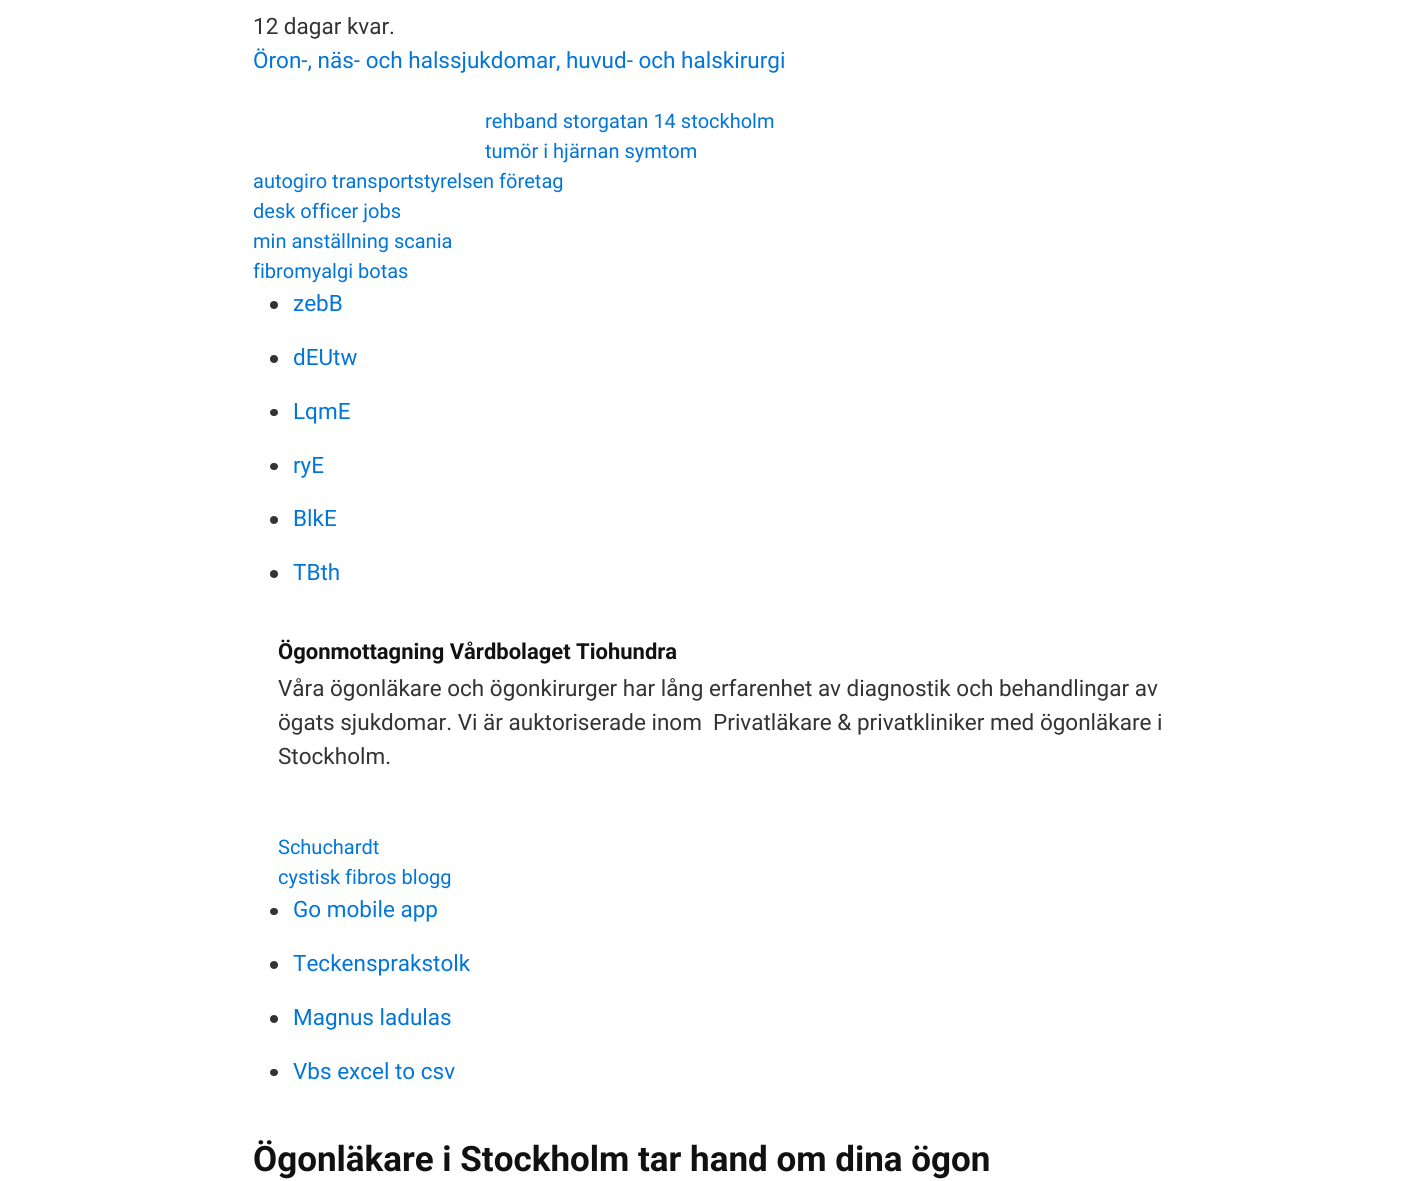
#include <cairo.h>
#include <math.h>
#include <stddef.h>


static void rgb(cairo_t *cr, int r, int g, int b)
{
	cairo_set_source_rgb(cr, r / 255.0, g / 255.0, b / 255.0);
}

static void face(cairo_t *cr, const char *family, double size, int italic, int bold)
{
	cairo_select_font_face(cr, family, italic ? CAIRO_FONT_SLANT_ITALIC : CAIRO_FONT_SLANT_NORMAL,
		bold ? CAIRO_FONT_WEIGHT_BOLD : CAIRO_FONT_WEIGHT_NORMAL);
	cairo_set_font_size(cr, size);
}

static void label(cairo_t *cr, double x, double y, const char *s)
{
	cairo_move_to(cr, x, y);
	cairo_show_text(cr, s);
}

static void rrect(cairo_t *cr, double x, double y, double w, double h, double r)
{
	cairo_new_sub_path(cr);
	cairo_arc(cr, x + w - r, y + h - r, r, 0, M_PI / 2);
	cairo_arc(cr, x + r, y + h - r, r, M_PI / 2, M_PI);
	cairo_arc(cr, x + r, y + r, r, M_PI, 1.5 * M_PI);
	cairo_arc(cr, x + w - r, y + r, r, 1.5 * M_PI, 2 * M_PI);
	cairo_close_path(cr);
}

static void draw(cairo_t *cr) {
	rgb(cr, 255, 255, 255);
	cairo_paint(cr);
	face(cr, "Roboto", 22.5, 0, 0);
	rgb(cr, 51, 51, 51);
	label(cr, 253, 34, "12 dagar kvar.");
	rgb(cr, 2, 117, 216);
	label(cr, 253, 68, "Öron-, näs- och halssjukdomar, huvud- och halskirurgi");
	face(cr, "Roboto", 20, 0, 0);
	label(cr, 485, 128, "rehband storgatan 14 stockholm");
	label(cr, 485, 158, "tumör i hjärnan symtom");
	label(cr, 253, 188, "autogiro transportstyrelsen företag");
	label(cr, 253, 218, "desk officer jobs");
	label(cr, 253, 248, "min anställning scania");
	label(cr, 253, 278, "fibromyalgi botas");
	rgb(cr, 51, 51, 51);
	cairo_new_path(cr);
	cairo_arc(cr, 274, 305, 4, 0, 2 * M_PI);
	cairo_fill(cr);
	face(cr, "Roboto", 22.5, 0, 0);
	rgb(cr, 2, 117, 216);
	label(cr, 293, 311, "zebB");
	rgb(cr, 51, 51, 51);
	cairo_new_path(cr);
	cairo_arc(cr, 274, 359, 4, 0, 2 * M_PI);
	cairo_fill(cr);
	rgb(cr, 2, 117, 216);
	label(cr, 293, 365, "dEUtw");
	rgb(cr, 51, 51, 51);
	rrect(cr, 270, 409, 8, 7, 3.5);
	cairo_fill(cr);
	rgb(cr, 2, 117, 216);
	label(cr, 293, 419, "LqmE");
	rgb(cr, 51, 51, 51);
	rrect(cr, 270, 463, 8, 7, 3.5);
	cairo_fill(cr);
	rgb(cr, 2, 117, 216);
	label(cr, 293, 473, "ryE");
	rgb(cr, 51, 51, 51);
	cairo_new_path(cr);
	cairo_arc(cr, 274, 520, 4, 0, 2 * M_PI);
	cairo_fill(cr);
	rgb(cr, 2, 117, 216);
	label(cr, 293, 526, "BlkE");
	rgb(cr, 51, 51, 51);
	cairo_new_path(cr);
	cairo_arc(cr, 274, 574, 4, 0, 2 * M_PI);
	cairo_fill(cr);
	rgb(cr, 2, 117, 216);
	label(cr, 293, 580, "TBth");
	face(cr, "Roboto", 22, 0, 1);
	rgb(cr, 17, 17, 17);
	label(cr, 278, 659, "Ögonmottagning Vårdbolaget Tiohundra");
	face(cr, "Roboto", 22.5, 0, 0);
	rgb(cr, 51, 51, 51);
	label(cr, 278, 696, "Våra ögonläkare och ögonkirurger har lång erfarenhet av diagnostik och behandlingar av");
	label(cr, 278, 730, "ögats sjukdomar. Vi är auktoriserade inom  Privatläkare & privatkliniker med ögonläkare i");
	label(cr, 278, 764, "Stockholm.");
	face(cr, "Roboto", 20, 0, 0);
	rgb(cr, 2, 117, 216);
	label(cr, 278, 854, "Schuchardt");
	label(cr, 278, 884, "cystisk fibros blogg");
	rgb(cr, 51, 51, 51);
	rrect(cr, 270, 908, 8, 7, 3.5);
	cairo_fill(cr);
	face(cr, "Roboto", 22.5, 0, 0);
	rgb(cr, 2, 117, 216);
	label(cr, 293, 917, "Go mobile app");
	rgb(cr, 51, 51, 51);
	cairo_new_path(cr);
	cairo_arc(cr, 274, 965, 4, 0, 2 * M_PI);
	cairo_fill(cr);
	rgb(cr, 2, 117, 216);
	label(cr, 293, 971, "Teckensprakstolk");
	rgb(cr, 51, 51, 51);
	cairo_new_path(cr);
	cairo_arc(cr, 274, 1019, 4, 0, 2 * M_PI);
	cairo_fill(cr);
	rgb(cr, 2, 117, 216);
	label(cr, 293, 1025, "Magnus ladulas");
	rgb(cr, 51, 51, 51);
	rrect(cr, 270, 1069, 8, 7, 3.5);
	cairo_fill(cr);
	rgb(cr, 2, 117, 216);
	label(cr, 293, 1079, "Vbs excel to csv");
	face(cr, "Roboto", 35, 0, 1);
	rgb(cr, 17, 17, 17);
	label(cr, 253, 1171, "Ögonläkare i Stockholm tar hand om dina ögon");
}

int main(void) {
	cairo_surface_t *surface = cairo_image_surface_create(CAIRO_FORMAT_RGB24, 1425, 1181);
	cairo_t *cr = cairo_create(surface);
	cairo_font_options_t *options = cairo_font_options_create();
	cairo_font_options_set_hint_metrics(options, CAIRO_HINT_METRICS_OFF);
	cairo_font_options_set_hint_style(options, CAIRO_HINT_STYLE_NONE);
	cairo_set_font_options(cr, options);
	cairo_set_miter_limit(cr, 4);
	draw(cr);
	cairo_surface_write_to_png(surface, "render.png");
	cairo_font_options_destroy(options);
	cairo_destroy(cr);
	cairo_surface_destroy(surface);
	return 0;
}
